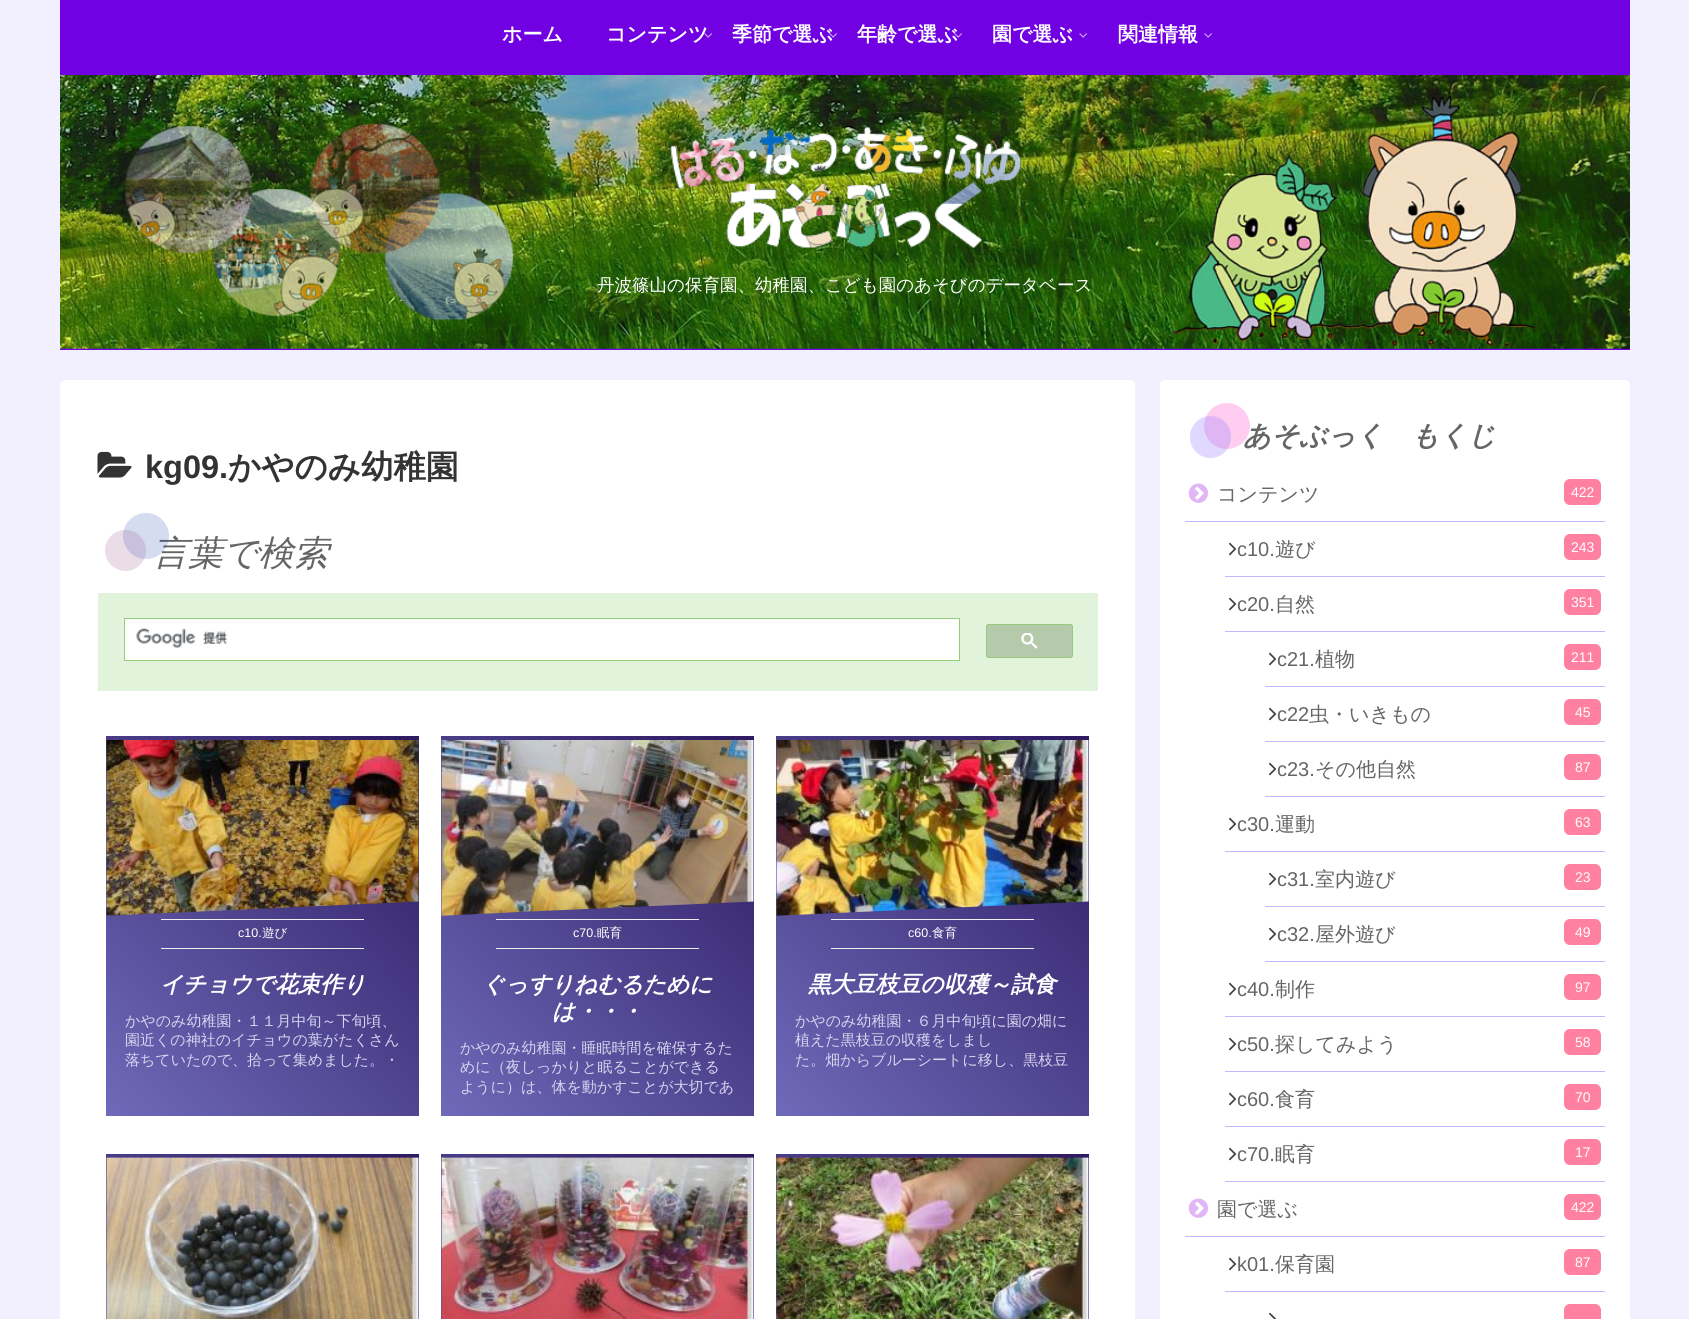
#include <cairo.h>
#include <math.h>
#include <stddef.h>


static void rgb(cairo_t *cr, int r, int g, int b)
{
	cairo_set_source_rgb(cr, r / 255.0, g / 255.0, b / 255.0);
}

static void face(cairo_t *cr, const char *family, double size, int italic, int bold)
{
	cairo_select_font_face(cr, family, italic ? CAIRO_FONT_SLANT_ITALIC : CAIRO_FONT_SLANT_NORMAL,
		bold ? CAIRO_FONT_WEIGHT_BOLD : CAIRO_FONT_WEIGHT_NORMAL);
	cairo_set_font_size(cr, size);
}

static void label(cairo_t *cr, double x, double y, const char *s)
{
	cairo_move_to(cr, x, y);
	cairo_show_text(cr, s);
}

static void rect(cairo_t *cr, double x, double y, double w, double h)
{
	cairo_rectangle(cr, x, y, w, h);
	cairo_fill(cr);
}

static void rrect(cairo_t *cr, double x, double y, double w, double h, double r)
{
	cairo_new_sub_path(cr);
	cairo_arc(cr, x + w - r, y + h - r, r, 0, M_PI / 2);
	cairo_arc(cr, x + r, y + h - r, r, M_PI / 2, M_PI);
	cairo_arc(cr, x + r, y + r, r, M_PI, 1.5 * M_PI);
	cairo_arc(cr, x + w - r, y + r, r, 1.5 * M_PI, 2 * M_PI);
	cairo_close_path(cr);
}

static void image(cairo_t *cr, const char *path, double x, double y, double w, double h)
{
	cairo_surface_t *image = cairo_image_surface_create_from_png(path);
	cairo_save(cr);
	cairo_set_source_surface(cr, image, x, y);
	cairo_rectangle(cr, x, y, w, h);
	cairo_fill(cr);
	cairo_restore(cr);
	cairo_surface_destroy(image);
}

static void draw(cairo_t *cr) {
	cairo_pattern_t *gradient;
	rgb(cr, 242, 240, 255);
	cairo_paint(cr);
	rgb(cr, 113, 0, 226);
	rect(cr, 60, 0, 1570, 350);
	face(cr, "WenQuanYi Zen Hei", 20, 0, 1);
	rgb(cr, 255, 255, 255);
	label(cr, 502, 41, "ホーム");
	label(cr, 606, 41, "コンテンツ");
	image(cr, "image0.png", 704, 33, 8, 5);
	label(cr, 732, 41, "季節で選ぶ");
	image(cr, "image1.png", 829, 33, 8, 5);
	label(cr, 857, 41, "年齢で選ぶ");
	image(cr, "image1.png", 954, 33, 8, 5);
	label(cr, 992, 41, "園で選ぶ");
	image(cr, "image2.png", 1079, 33, 8, 5);
	label(cr, 1118, 41, "関連情報");
	image(cr, "image2.png", 1204, 33, 8, 5);
	image(cr, "image3.png", 60, 75, 1570, 274);
	image(cr, "image4.png", 670, 126, 352, 122);
	face(cr, "WenQuanYi Zen Hei Medium", 17.5, 0, 0);
	label(cr, 597, 291, "丹波篠山の保育園、幼稚園、こども園のあそびのデータベース");
	rrect(cr, 60, 380, 1075, 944, 5);
	cairo_fill(cr);
	image(cr, "image5.png", 97, 451, 35, 27);
	face(cr, "Liberation Sans", 32.5, 0, 1);
	rgb(cr, 51, 51, 51);
	label(cr, 145, 478, "kg09.");
	face(cr, "WenQuanYi Zen Hei", 32.5, 0, 1);
	label(cr, 228, 478, "かやのみ幼稚園");
	face(cr, "WenQuanYi Zen Hei Medium", 35, 1, 0);
	rgb(cr, 101, 101, 101);
	label(cr, 153, 565, "言葉で検索");
	cairo_set_source_rgba(cr, 0.094, 0.251, 0.694, 0.18);
	cairo_new_path(cr);
	cairo_arc(cr, 146, 536, 23, 0, 2 * M_PI);
	cairo_fill(cr);
	cairo_set_source_rgba(cr, 0.549, 0.282, 0.514, 0.18);
	cairo_arc(cr, 125.5, 550.5, 20.5, 0, 2 * M_PI);
	cairo_fill(cr);
	rgb(cr, 225, 243, 218);
	rect(cr, 98, 593, 1000, 98);
	rgb(cr, 255, 255, 255);
	cairo_rectangle(cr, 124.5, 618.5, 835, 42);
	cairo_fill_preserve(cr);
	rgb(cr, 148, 204, 122);
	cairo_set_line_width(cr, 1);
	cairo_stroke(cr);
	image(cr, "image6.png", 136, 628, 92, 20);
	rgb(cr, 181, 201, 171);
	rrect(cr, 986.5, 624.5, 86, 33, 2);
	cairo_fill_preserve(cr);
	rgb(cr, 148, 204, 122);
	cairo_stroke(cr);
	image(cr, "image7.png", 1021, 633, 17, 16);
	gradient = cairo_pattern_create_linear(436, 753, 89, 1099);
	cairo_pattern_add_color_stop_rgba(gradient, 0.03, 0.18, 0.106, 0.388, 1);
	cairo_pattern_add_color_stop_rgba(gradient, 1, 0.435, 0.416, 0.725, 1);
	cairo_set_source(cr, gradient);
	cairo_pattern_destroy(gradient);
	rect(cr, 106, 736, 313, 380);
	image(cr, "image8.png", 106, 740, 313, 176);
	rgb(cr, 238, 238, 238);
	rect(cr, 161, 919, 203, 1);
	rect(cr, 161, 948, 203, 1);
	face(cr, "Liberation Sans", 12.5, 0, 0);
	rgb(cr, 255, 255, 255);
	label(cr, 238, 937, "c10.");
	face(cr, "WenQuanYi Zen Hei Medium", 12.5, 0, 0);
	label(cr, 262, 937, "遊び");
	face(cr, "WenQuanYi Zen Hei", 22.5, 1, 1);
	label(cr, 160, 992, "イチョウで花束作り");
	face(cr, "WenQuanYi Zen Hei Medium", 15, 0, 0);
	rgb(cr, 215, 213, 239);
	label(cr, 125, 1026, "かやのみ幼稚園・１１月中旬～下旬頃、");
	label(cr, 125, 1045, "園近くの神社のイチョウの葉がたくさん");
	label(cr, 125, 1065, "落ちていたので、拾って集めました。・");
	gradient = cairo_pattern_create_linear(771, 753, 424, 1099);
	cairo_pattern_add_color_stop_rgba(gradient, 0.03, 0.18, 0.106, 0.388, 1);
	cairo_pattern_add_color_stop_rgba(gradient, 1, 0.435, 0.416, 0.725, 1);
	cairo_set_source(cr, gradient);
	cairo_pattern_destroy(gradient);
	rect(cr, 441, 736, 313, 380);
	image(cr, "image9.png", 441, 740, 313, 176);
	rgb(cr, 238, 238, 238);
	rect(cr, 496, 919, 203, 1);
	rect(cr, 496, 948, 203, 1);
	face(cr, "Liberation Sans", 12.5, 0, 0);
	rgb(cr, 255, 255, 255);
	label(cr, 573, 937, "c70.");
	face(cr, "WenQuanYi Zen Hei Medium", 12.5, 0, 0);
	label(cr, 597, 937, "眠育");
	face(cr, "WenQuanYi Zen Hei", 22.5, 1, 1);
	label(cr, 482, 992, "ぐっすりねむるために");
	label(cr, 552, 1019, "は・・・");
	face(cr, "WenQuanYi Zen Hei Medium", 15, 0, 0);
	rgb(cr, 215, 213, 239);
	label(cr, 460, 1053, "かやのみ幼稚園・睡眠時間を確保するた");
	label(cr, 460, 1072, "めに（夜しっかりと眠ることができる");
	label(cr, 460, 1092, "ように）は、体を動かすことが大切であ");
	gradient = cairo_pattern_create_linear(1106, 753, 759, 1099);
	cairo_pattern_add_color_stop_rgba(gradient, 0.03, 0.18, 0.106, 0.388, 1);
	cairo_pattern_add_color_stop_rgba(gradient, 1, 0.435, 0.416, 0.725, 1);
	cairo_set_source(cr, gradient);
	cairo_pattern_destroy(gradient);
	rect(cr, 776, 736, 313, 380);
	image(cr, "image10.png", 776, 740, 313, 176);
	rgb(cr, 238, 238, 238);
	rect(cr, 831, 919, 203, 1);
	rect(cr, 831, 948, 203, 1);
	face(cr, "Liberation Sans", 12.5, 0, 0);
	rgb(cr, 255, 255, 255);
	label(cr, 908, 937, "c60.");
	face(cr, "WenQuanYi Zen Hei Medium", 12.5, 0, 0);
	label(cr, 932, 937, "食育");
	face(cr, "WenQuanYi Zen Hei", 22.5, 1, 1);
	label(cr, 808, 992, "黒大豆枝豆の収穫～試食");
	face(cr, "WenQuanYi Zen Hei Medium", 15, 0, 0);
	rgb(cr, 215, 213, 239);
	label(cr, 795, 1026, "かやのみ幼稚園・６月中旬頃に園の畑に");
	label(cr, 795, 1045, "植えた黒枝豆の収穫をしまし");
	label(cr, 795, 1065, "た。畑からブルーシートに移し、黒枝豆");
	gradient = cairo_pattern_create_linear(436, 1171, 89, 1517);
	cairo_pattern_add_color_stop_rgba(gradient, 0.03, 0.18, 0.106, 0.388, 1);
	cairo_pattern_add_color_stop_rgba(gradient, 1, 0.435, 0.416, 0.725, 1);
	cairo_set_source(cr, gradient);
	cairo_pattern_destroy(gradient);
	rect(cr, 106, 1154, 313, 165);
	image(cr, "image11.png", 106, 1157, 313, 162);
	gradient = cairo_pattern_create_linear(771, 1171, 424, 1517);
	cairo_pattern_add_color_stop_rgba(gradient, 0.03, 0.18, 0.106, 0.388, 1);
	cairo_pattern_add_color_stop_rgba(gradient, 1, 0.435, 0.416, 0.725, 1);
	cairo_set_source(cr, gradient);
	cairo_pattern_destroy(gradient);
	rect(cr, 441, 1154, 313, 165);
	image(cr, "image12.png", 441, 1157, 313, 162);
	gradient = cairo_pattern_create_linear(1106, 1171, 759, 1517);
	cairo_pattern_add_color_stop_rgba(gradient, 0.03, 0.18, 0.106, 0.388, 1);
	cairo_pattern_add_color_stop_rgba(gradient, 1, 0.435, 0.416, 0.725, 1);
	cairo_set_source(cr, gradient);
	cairo_pattern_destroy(gradient);
	rect(cr, 776, 1154, 313, 165);
	image(cr, "image13.png", 776, 1157, 313, 162);
	rgb(cr, 255, 255, 255);
	rrect(cr, 1160, 380, 470, 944, 5);
	cairo_fill(cr);
	face(cr, "WenQuanYi Zen Hei", 27.5, 1, 1);
	rgb(cr, 101, 101, 101);
	label(cr, 1243, 445, "あそぶっく　もくじ");
	rgb(cr, 255, 205, 240);
	cairo_new_path(cr);
	cairo_arc(cr, 1227, 426, 23, 0, 2 * M_PI);
	cairo_fill(cr);
	cairo_set_source_rgba(cr, 0.588, 0.486, 1, 0.3);
	rrect(cr, 1190, 416, 41, 42, 20.5);
	cairo_fill(cr);
	rgb(cr, 197, 182, 255);
	rect(cr, 1185, 521, 420, 1);
	image(cr, "image14.png", 1188, 483, 20, 20);
	face(cr, "WenQuanYi Zen Hei Medium", 20, 0, 0);
	rgb(cr, 101, 101, 101);
	label(cr, 1217, 501, "コンテンツ");
	rgb(cr, 255, 128, 161);
	rrect(cr, 1564, 479, 37, 26, 6);
	cairo_fill(cr);
	face(cr, "Liberation Sans", 14, 0, 0);
	rgb(cr, 255, 255, 255);
	label(cr, 1571, 497, "422");
	rgb(cr, 197, 182, 255);
	rect(cr, 1225, 576, 380, 1);
	image(cr, "image15.png", 1229, 542, 8, 14);
	face(cr, "Liberation Sans", 20, 0, 0);
	rgb(cr, 101, 101, 101);
	label(cr, 1237, 556, "c10.");
	face(cr, "WenQuanYi Zen Hei Medium", 20, 0, 0);
	label(cr, 1275, 556, "遊び");
	rgb(cr, 255, 128, 161);
	rrect(cr, 1564, 534, 37, 26, 6);
	cairo_fill(cr);
	face(cr, "Liberation Sans", 14, 0, 0);
	rgb(cr, 255, 255, 255);
	label(cr, 1571, 552, "243");
	rgb(cr, 197, 182, 255);
	rect(cr, 1225, 631, 380, 1);
	image(cr, "image15.png", 1229, 597, 8, 14);
	face(cr, "Liberation Sans", 20, 0, 0);
	rgb(cr, 101, 101, 101);
	label(cr, 1237, 611, "c20.");
	face(cr, "WenQuanYi Zen Hei Medium", 20, 0, 0);
	label(cr, 1275, 611, "自然");
	rgb(cr, 255, 128, 161);
	rrect(cr, 1564, 589, 37, 26, 6);
	cairo_fill(cr);
	face(cr, "Liberation Sans", 14, 0, 0);
	rgb(cr, 255, 255, 255);
	label(cr, 1571, 607, "351");
	rgb(cr, 197, 182, 255);
	rect(cr, 1265, 686, 340, 1);
	image(cr, "image15.png", 1269, 652, 8, 14);
	face(cr, "Liberation Sans", 20, 0, 0);
	rgb(cr, 101, 101, 101);
	label(cr, 1277, 666, "c21.");
	face(cr, "WenQuanYi Zen Hei Medium", 20, 0, 0);
	label(cr, 1315, 666, "植物");
	rgb(cr, 255, 128, 161);
	rrect(cr, 1564, 644, 37, 26, 6);
	cairo_fill(cr);
	face(cr, "Liberation Sans", 14, 0, 0);
	rgb(cr, 255, 255, 255);
	label(cr, 1571, 662, "211");
	rgb(cr, 197, 182, 255);
	rect(cr, 1265, 741, 340, 1);
	image(cr, "image15.png", 1269, 707, 8, 14);
	face(cr, "Liberation Sans", 20, 0, 0);
	rgb(cr, 101, 101, 101);
	label(cr, 1277, 721, "c22");
	face(cr, "WenQuanYi Zen Hei Medium", 20, 0, 0);
	label(cr, 1309, 721, "虫・いきもの");
	rgb(cr, 255, 128, 161);
	rrect(cr, 1564, 699, 37, 26, 6);
	cairo_fill(cr);
	face(cr, "Liberation Sans", 14, 0, 0);
	rgb(cr, 255, 255, 255);
	label(cr, 1575, 717, "45");
	rgb(cr, 197, 182, 255);
	rect(cr, 1265, 796, 340, 1);
	image(cr, "image15.png", 1269, 762, 8, 14);
	face(cr, "Liberation Sans", 20, 0, 0);
	rgb(cr, 101, 101, 101);
	label(cr, 1277, 776, "c23.");
	face(cr, "WenQuanYi Zen Hei Medium", 20, 0, 0);
	label(cr, 1315, 776, "その他自然");
	rgb(cr, 255, 128, 161);
	rrect(cr, 1564, 754, 37, 26, 6);
	cairo_fill(cr);
	face(cr, "Liberation Sans", 14, 0, 0);
	rgb(cr, 255, 255, 255);
	label(cr, 1575, 772, "87");
	rgb(cr, 197, 182, 255);
	rect(cr, 1225, 851, 380, 1);
	image(cr, "image15.png", 1229, 817, 8, 14);
	face(cr, "Liberation Sans", 20, 0, 0);
	rgb(cr, 101, 101, 101);
	label(cr, 1237, 831, "c30.");
	face(cr, "WenQuanYi Zen Hei Medium", 20, 0, 0);
	label(cr, 1275, 831, "運動");
	rgb(cr, 255, 128, 161);
	rrect(cr, 1564, 809, 37, 26, 6);
	cairo_fill(cr);
	face(cr, "Liberation Sans", 14, 0, 0);
	rgb(cr, 255, 255, 255);
	label(cr, 1575, 827, "63");
	rgb(cr, 197, 182, 255);
	rect(cr, 1265, 906, 340, 1);
	image(cr, "image15.png", 1269, 872, 8, 14);
	face(cr, "Liberation Sans", 20, 0, 0);
	rgb(cr, 101, 101, 101);
	label(cr, 1277, 886, "c31.");
	face(cr, "WenQuanYi Zen Hei Medium", 20, 0, 0);
	label(cr, 1315, 886, "室内遊び");
	rgb(cr, 255, 128, 161);
	rrect(cr, 1564, 864, 37, 26, 6);
	cairo_fill(cr);
	face(cr, "Liberation Sans", 14, 0, 0);
	rgb(cr, 255, 255, 255);
	label(cr, 1575, 882, "23");
	rgb(cr, 197, 182, 255);
	rect(cr, 1265, 961, 340, 1);
	image(cr, "image15.png", 1269, 927, 8, 14);
	face(cr, "Liberation Sans", 20, 0, 0);
	rgb(cr, 101, 101, 101);
	label(cr, 1277, 941, "c32.");
	face(cr, "WenQuanYi Zen Hei Medium", 20, 0, 0);
	label(cr, 1315, 941, "屋外遊び");
	rgb(cr, 255, 128, 161);
	rrect(cr, 1564, 919, 37, 26, 6);
	cairo_fill(cr);
	face(cr, "Liberation Sans", 14, 0, 0);
	rgb(cr, 255, 255, 255);
	label(cr, 1575, 937, "49");
	rgb(cr, 197, 182, 255);
	rect(cr, 1225, 1016, 380, 1);
	image(cr, "image15.png", 1229, 982, 8, 14);
	face(cr, "Liberation Sans", 20, 0, 0);
	rgb(cr, 101, 101, 101);
	label(cr, 1237, 996, "c40.");
	face(cr, "WenQuanYi Zen Hei Medium", 20, 0, 0);
	label(cr, 1275, 996, "制作");
	rgb(cr, 255, 128, 161);
	rrect(cr, 1564, 974, 37, 26, 6);
	cairo_fill(cr);
	face(cr, "Liberation Sans", 14, 0, 0);
	rgb(cr, 255, 255, 255);
	label(cr, 1575, 992, "97");
	rgb(cr, 197, 182, 255);
	rect(cr, 1225, 1071, 380, 1);
	image(cr, "image15.png", 1229, 1037, 8, 14);
	face(cr, "Liberation Sans", 20, 0, 0);
	rgb(cr, 101, 101, 101);
	label(cr, 1237, 1051, "c50.");
	face(cr, "WenQuanYi Zen Hei Medium", 20, 0, 0);
	label(cr, 1275, 1051, "探してみよう");
	rgb(cr, 255, 128, 161);
	rrect(cr, 1564, 1029, 37, 26, 6);
	cairo_fill(cr);
	face(cr, "Liberation Sans", 14, 0, 0);
	rgb(cr, 255, 255, 255);
	label(cr, 1575, 1047, "58");
	rgb(cr, 197, 182, 255);
	rect(cr, 1225, 1126, 380, 1);
	image(cr, "image15.png", 1229, 1092, 8, 14);
	face(cr, "Liberation Sans", 20, 0, 0);
	rgb(cr, 101, 101, 101);
	label(cr, 1237, 1106, "c60.");
	face(cr, "WenQuanYi Zen Hei Medium", 20, 0, 0);
	label(cr, 1275, 1106, "食育");
	rgb(cr, 255, 128, 161);
	rrect(cr, 1564, 1084, 37, 26, 6);
	cairo_fill(cr);
	face(cr, "Liberation Sans", 14, 0, 0);
	rgb(cr, 255, 255, 255);
	label(cr, 1575, 1102, "70");
	rgb(cr, 197, 182, 255);
	rect(cr, 1225, 1181, 380, 1);
	image(cr, "image15.png", 1229, 1147, 8, 14);
	face(cr, "Liberation Sans", 20, 0, 0);
	rgb(cr, 101, 101, 101);
	label(cr, 1237, 1161, "c70.");
	face(cr, "WenQuanYi Zen Hei Medium", 20, 0, 0);
	label(cr, 1275, 1161, "眠育");
	rgb(cr, 255, 128, 161);
	rrect(cr, 1564, 1139, 37, 26, 6);
	cairo_fill(cr);
	face(cr, "Liberation Sans", 14, 0, 0);
	rgb(cr, 255, 255, 255);
	label(cr, 1575, 1157, "17");
	rgb(cr, 197, 182, 255);
	rect(cr, 1185, 1236, 420, 1);
	image(cr, "image14.png", 1188, 1198, 20, 20);
	face(cr, "WenQuanYi Zen Hei Medium", 20, 0, 0);
	rgb(cr, 101, 101, 101);
	label(cr, 1217, 1216, "園で選ぶ");
	rgb(cr, 255, 128, 161);
	rrect(cr, 1564, 1194, 37, 26, 6);
	cairo_fill(cr);
	face(cr, "Liberation Sans", 14, 0, 0);
	rgb(cr, 255, 255, 255);
	label(cr, 1571, 1212, "422");
	rgb(cr, 197, 182, 255);
	rect(cr, 1225, 1291, 380, 1);
	image(cr, "image15.png", 1229, 1257, 8, 14);
	face(cr, "Liberation Sans", 20, 0, 0);
	rgb(cr, 101, 101, 101);
	label(cr, 1237, 1271, "k01.");
	face(cr, "WenQuanYi Zen Hei Medium", 20, 0, 0);
	label(cr, 1275, 1271, "保育園");
	rgb(cr, 255, 128, 161);
	rrect(cr, 1564, 1249, 37, 26, 6);
	cairo_fill(cr);
	face(cr, "Liberation Sans", 14, 0, 0);
	rgb(cr, 255, 255, 255);
	label(cr, 1575, 1267, "87");
	image(cr, "image16.png", 1269, 1312, 8, 7);
	rgb(cr, 255, 128, 161);
	rrect(cr, 1564, 1304, 37, 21, 6);
	cairo_fill(cr);
}

int main(void) {
	cairo_surface_t *surface = cairo_image_surface_create(CAIRO_FORMAT_RGB24, 1689, 1319);
	cairo_t *cr = cairo_create(surface);
	cairo_font_options_t *options = cairo_font_options_create();
	cairo_font_options_set_hint_metrics(options, CAIRO_HINT_METRICS_OFF);
	cairo_font_options_set_hint_style(options, CAIRO_HINT_STYLE_NONE);
	cairo_set_font_options(cr, options);
	cairo_set_miter_limit(cr, 4);
	draw(cr);
	cairo_surface_write_to_png(surface, "render.png");
	cairo_font_options_destroy(options);
	cairo_destroy(cr);
	cairo_surface_destroy(surface);
	return 0;
}
